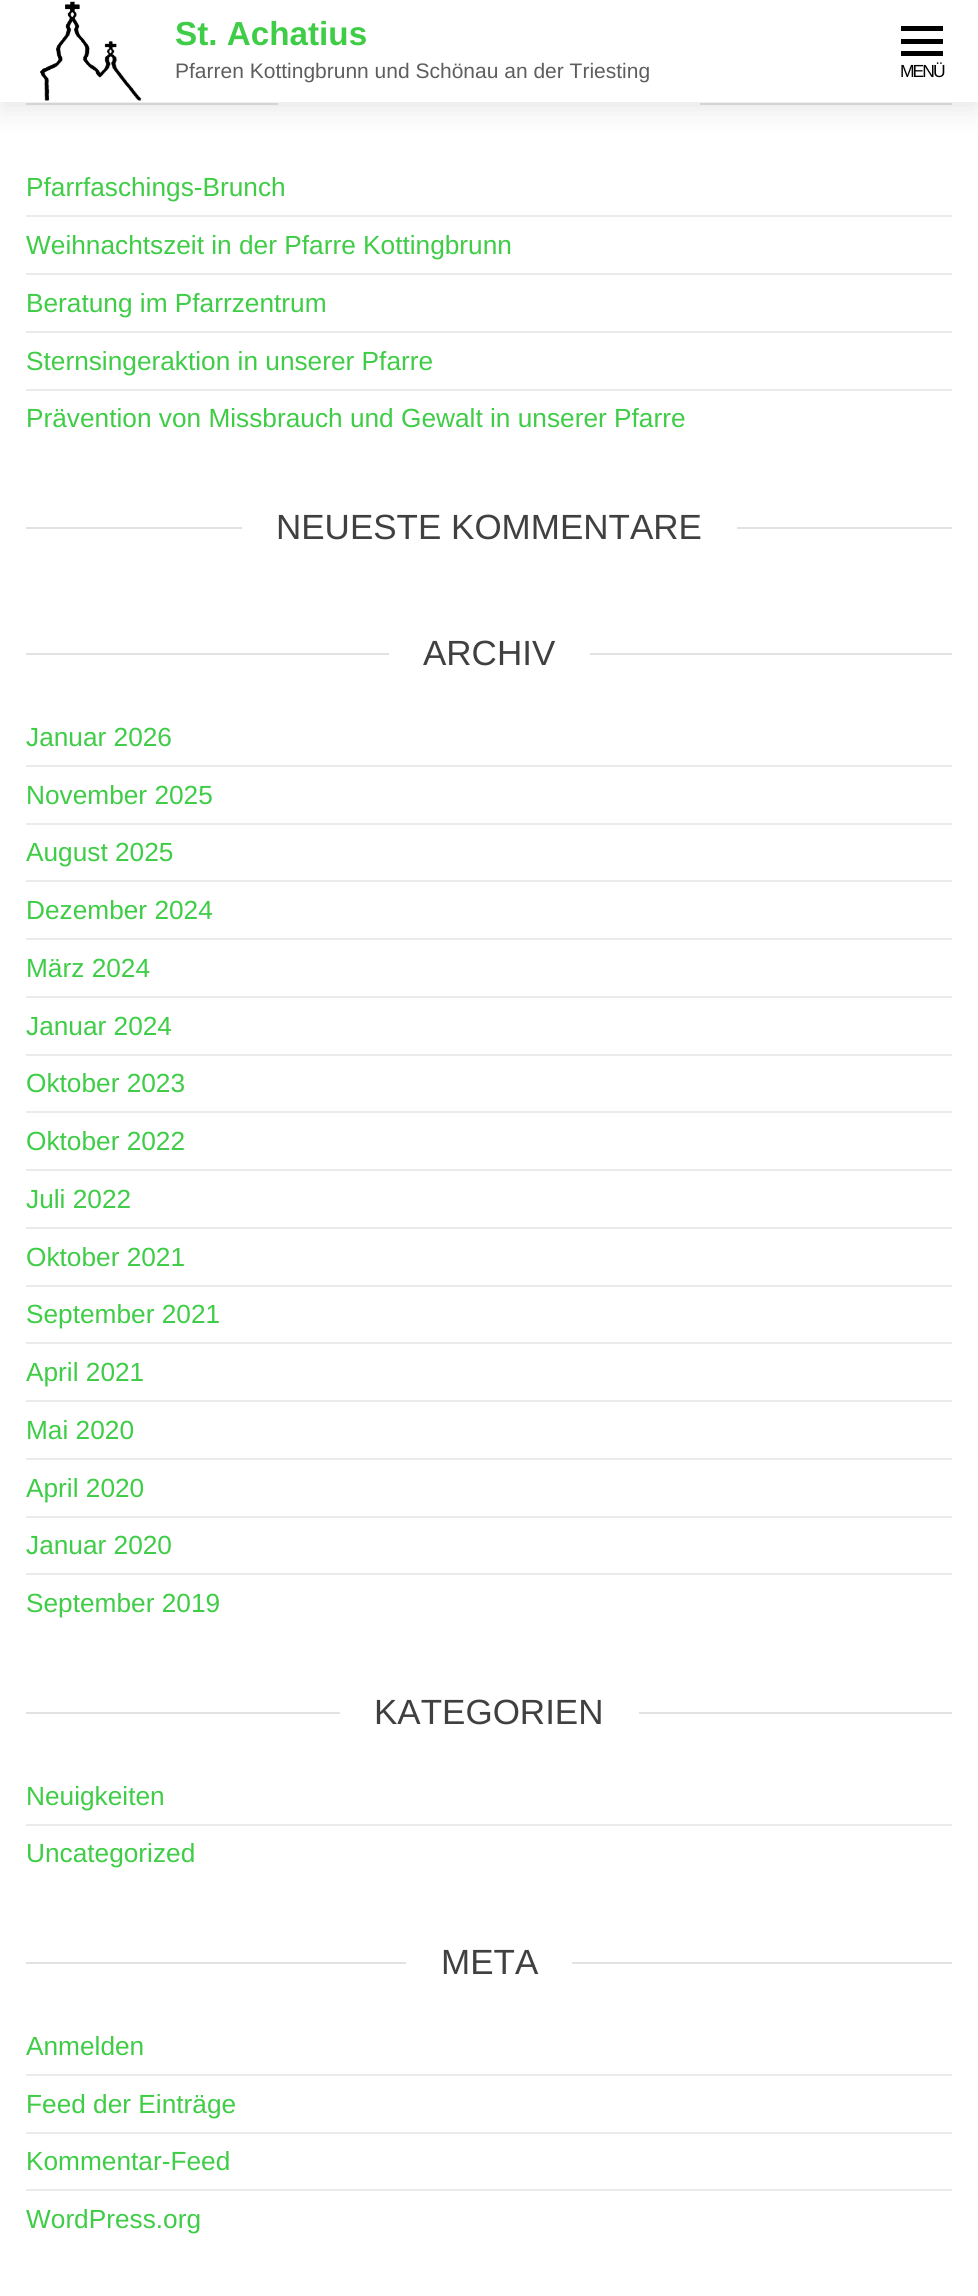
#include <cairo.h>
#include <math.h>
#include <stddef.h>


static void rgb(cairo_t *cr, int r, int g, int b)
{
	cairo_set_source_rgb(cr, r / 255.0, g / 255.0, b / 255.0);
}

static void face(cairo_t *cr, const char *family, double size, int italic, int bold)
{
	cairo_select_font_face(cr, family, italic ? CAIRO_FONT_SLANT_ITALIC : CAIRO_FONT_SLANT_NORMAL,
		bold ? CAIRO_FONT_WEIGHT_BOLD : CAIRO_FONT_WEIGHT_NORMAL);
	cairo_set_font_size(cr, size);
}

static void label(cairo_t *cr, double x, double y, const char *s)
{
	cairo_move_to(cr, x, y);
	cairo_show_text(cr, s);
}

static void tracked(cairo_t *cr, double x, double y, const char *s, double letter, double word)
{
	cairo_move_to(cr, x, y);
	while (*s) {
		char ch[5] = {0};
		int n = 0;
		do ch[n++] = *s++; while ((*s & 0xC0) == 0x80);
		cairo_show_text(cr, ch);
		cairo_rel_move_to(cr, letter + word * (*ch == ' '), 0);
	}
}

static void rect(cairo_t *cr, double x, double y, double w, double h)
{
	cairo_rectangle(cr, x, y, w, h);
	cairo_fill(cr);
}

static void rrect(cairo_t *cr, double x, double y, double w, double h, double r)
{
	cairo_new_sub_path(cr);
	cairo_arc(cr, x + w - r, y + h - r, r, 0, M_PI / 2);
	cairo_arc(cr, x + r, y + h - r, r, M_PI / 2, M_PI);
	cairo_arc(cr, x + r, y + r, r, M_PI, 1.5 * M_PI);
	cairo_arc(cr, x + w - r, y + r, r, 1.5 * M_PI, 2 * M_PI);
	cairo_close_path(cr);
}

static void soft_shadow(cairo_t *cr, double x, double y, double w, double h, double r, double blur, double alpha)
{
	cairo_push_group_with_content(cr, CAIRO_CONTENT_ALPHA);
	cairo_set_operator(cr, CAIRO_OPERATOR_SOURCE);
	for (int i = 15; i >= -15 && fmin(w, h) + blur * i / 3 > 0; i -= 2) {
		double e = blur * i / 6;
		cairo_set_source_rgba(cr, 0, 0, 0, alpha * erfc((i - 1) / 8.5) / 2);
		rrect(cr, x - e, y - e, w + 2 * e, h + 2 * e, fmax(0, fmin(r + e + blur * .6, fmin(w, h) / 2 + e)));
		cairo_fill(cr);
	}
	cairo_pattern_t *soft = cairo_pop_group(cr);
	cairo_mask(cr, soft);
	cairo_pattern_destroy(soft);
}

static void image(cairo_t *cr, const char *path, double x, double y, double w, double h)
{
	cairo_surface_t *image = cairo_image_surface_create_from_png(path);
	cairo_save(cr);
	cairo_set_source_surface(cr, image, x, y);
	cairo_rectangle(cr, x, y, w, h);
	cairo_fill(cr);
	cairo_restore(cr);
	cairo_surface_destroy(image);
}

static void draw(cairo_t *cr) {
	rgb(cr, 255, 255, 255);
	cairo_paint(cr);
	rgb(cr, 226, 226, 226);
	rect(cr, 26, 103, 926, 2);
	rgb(cr, 255, 255, 255);
	rect(cr, 278, 103, 422, 2);
	rgb(cr, 0, 0, 0);
	soft_shadow(cr, 0, 7, 978, 102, 0, 14, 0.1);
	rgb(cr, 255, 255, 255);
	rect(cr, 0, 0, 978, 102);
	image(cr, "image0.png", 40, 1, 102, 100);
	face(cr, "Liberation Sans", 33.25, 0, 1);
	rgb(cr, 63, 204, 70);
	label(cr, 175, 45, "St. Achatius");
	face(cr, "Liberation Sans", 21, 0, 0);
	rgb(cr, 94, 94, 94);
	label(cr, 175, 78, "Pfarren Kottingbrunn und Schönau an der Triesting");
	rgb(cr, 0, 0, 0);
	rect(cr, 901, 26, 42, 5);
	rect(cr, 901, 39, 42, 5);
	rect(cr, 901, 51, 42, 5);
	face(cr, "Liberation Sans", 17.5, 0, 0);
	tracked(cr, 900, 77, "MENÜ", -2, 0);
	rgb(cr, 235, 235, 235);
	rect(cr, 26, 215, 926, 2);
	face(cr, "Liberation Sans", 26.25, 0, 0);
	rgb(cr, 63, 204, 70);
	label(cr, 26, 196, "Pfarrfaschings-Brunch");
	rgb(cr, 235, 235, 235);
	rect(cr, 26, 273, 926, 2);
	rgb(cr, 63, 204, 70);
	label(cr, 26, 254, "Weihnachtszeit in der Pfarre Kottingbrunn");
	rgb(cr, 235, 235, 235);
	rect(cr, 26, 331, 926, 2);
	rgb(cr, 63, 204, 70);
	label(cr, 26, 312, "Beratung im Pfarrzentrum");
	rgb(cr, 235, 235, 235);
	rect(cr, 26, 389, 926, 2);
	rgb(cr, 63, 204, 70);
	label(cr, 26, 370, "Sternsingeraktion in unserer Pfarre");
	label(cr, 26, 427, "Prävention von Missbrauch und Gewalt in unserer Pfarre");
	rgb(cr, 226, 226, 226);
	rect(cr, 26, 527, 926, 2);
	rgb(cr, 255, 255, 255);
	rect(cr, 242, 527, 495, 2);
	face(cr, "Liberation Sans", 35, 0, 0);
	rgb(cr, 64, 64, 64);
	label(cr, 276, 539, "NEUESTE KOMMENTARE");
	rgb(cr, 226, 226, 226);
	rect(cr, 26, 653, 926, 2);
	rgb(cr, 255, 255, 255);
	rect(cr, 389, 653, 201, 2);
	rgb(cr, 64, 64, 64);
	label(cr, 423, 665, "ARCHIV");
	rgb(cr, 235, 235, 235);
	rect(cr, 26, 765, 926, 2);
	face(cr, "Liberation Sans", 26.25, 0, 0);
	rgb(cr, 63, 204, 70);
	label(cr, 26, 746, "Januar 2026");
	rgb(cr, 235, 235, 235);
	rect(cr, 26, 823, 926, 2);
	rgb(cr, 63, 204, 70);
	label(cr, 26, 804, "November 2025");
	rgb(cr, 235, 235, 235);
	rect(cr, 26, 880, 926, 2);
	rgb(cr, 63, 204, 70);
	label(cr, 26, 861, "August 2025");
	rgb(cr, 235, 235, 235);
	rect(cr, 26, 938, 926, 2);
	rgb(cr, 63, 204, 70);
	label(cr, 26, 919, "Dezember 2024");
	rgb(cr, 235, 235, 235);
	rect(cr, 26, 996, 926, 2);
	rgb(cr, 63, 204, 70);
	label(cr, 26, 977, "März 2024");
	rgb(cr, 235, 235, 235);
	rect(cr, 26, 1054, 926, 2);
	rgb(cr, 63, 204, 70);
	label(cr, 26, 1035, "Januar 2024");
	rgb(cr, 235, 235, 235);
	rect(cr, 26, 1111, 926, 2);
	rgb(cr, 63, 204, 70);
	label(cr, 26, 1092, "Oktober 2023");
	rgb(cr, 235, 235, 235);
	rect(cr, 26, 1169, 926, 2);
	rgb(cr, 63, 204, 70);
	label(cr, 26, 1150, "Oktober 2022");
	rgb(cr, 235, 235, 235);
	rect(cr, 26, 1227, 926, 2);
	rgb(cr, 63, 204, 70);
	label(cr, 26, 1208, "Juli 2022");
	rgb(cr, 235, 235, 235);
	rect(cr, 26, 1285, 926, 2);
	rgb(cr, 63, 204, 70);
	label(cr, 26, 1266, "Oktober 2021");
	rgb(cr, 235, 235, 235);
	rect(cr, 26, 1342, 926, 2);
	rgb(cr, 63, 204, 70);
	label(cr, 26, 1323, "September 2021");
	rgb(cr, 235, 235, 235);
	rect(cr, 26, 1400, 926, 2);
	rgb(cr, 63, 204, 70);
	label(cr, 26, 1381, "April 2021");
	rgb(cr, 235, 235, 235);
	rect(cr, 26, 1458, 926, 2);
	rgb(cr, 63, 204, 70);
	label(cr, 26, 1439, "Mai 2020");
	rgb(cr, 235, 235, 235);
	rect(cr, 26, 1516, 926, 2);
	rgb(cr, 63, 204, 70);
	label(cr, 26, 1497, "April 2020");
	rgb(cr, 235, 235, 235);
	rect(cr, 26, 1573, 926, 2);
	rgb(cr, 63, 204, 70);
	label(cr, 26, 1554, "Januar 2020");
	label(cr, 26, 1612, "September 2019");
	rgb(cr, 226, 226, 226);
	rect(cr, 26, 1712, 926, 2);
	rgb(cr, 255, 255, 255);
	rect(cr, 340, 1712, 299, 2);
	face(cr, "Liberation Sans", 35, 0, 0);
	rgb(cr, 64, 64, 64);
	label(cr, 374, 1724, "KATEGORIEN");
	rgb(cr, 235, 235, 235);
	rect(cr, 26, 1824, 926, 2);
	face(cr, "Liberation Sans", 26.25, 0, 0);
	rgb(cr, 63, 204, 70);
	label(cr, 26, 1805, "Neuigkeiten");
	label(cr, 26, 1862, "Uncategorized");
	rgb(cr, 226, 226, 226);
	rect(cr, 26, 1962, 926, 2);
	rgb(cr, 255, 255, 255);
	rect(cr, 406, 1962, 166, 2);
	face(cr, "Liberation Sans", 35, 0, 0);
	rgb(cr, 64, 64, 64);
	label(cr, 441, 1974, "META");
	rgb(cr, 235, 235, 235);
	rect(cr, 26, 2074, 926, 2);
	face(cr, "Liberation Sans", 26.25, 0, 0);
	rgb(cr, 63, 204, 70);
	label(cr, 26, 2055, "Anmelden");
	rgb(cr, 235, 235, 235);
	rect(cr, 26, 2132, 926, 2);
	rgb(cr, 63, 204, 70);
	label(cr, 26, 2113, "Feed der Einträge");
	rgb(cr, 235, 235, 235);
	rect(cr, 26, 2189, 926, 2);
	rgb(cr, 63, 204, 70);
	label(cr, 26, 2170, "Kommentar-Feed");
	label(cr, 26, 2228, "WordPress.org");
}

int main(void) {
	cairo_surface_t *surface = cairo_image_surface_create(CAIRO_FORMAT_RGB24, 978, 2296);
	cairo_t *cr = cairo_create(surface);
	cairo_font_options_t *options = cairo_font_options_create();
	cairo_font_options_set_hint_metrics(options, CAIRO_HINT_METRICS_OFF);
	cairo_font_options_set_hint_style(options, CAIRO_HINT_STYLE_NONE);
	cairo_set_font_options(cr, options);
	cairo_set_miter_limit(cr, 4);
	draw(cr);
	cairo_surface_write_to_png(surface, "render.png");
	cairo_font_options_destroy(options);
	cairo_destroy(cr);
	cairo_surface_destroy(surface);
	return 0;
}
